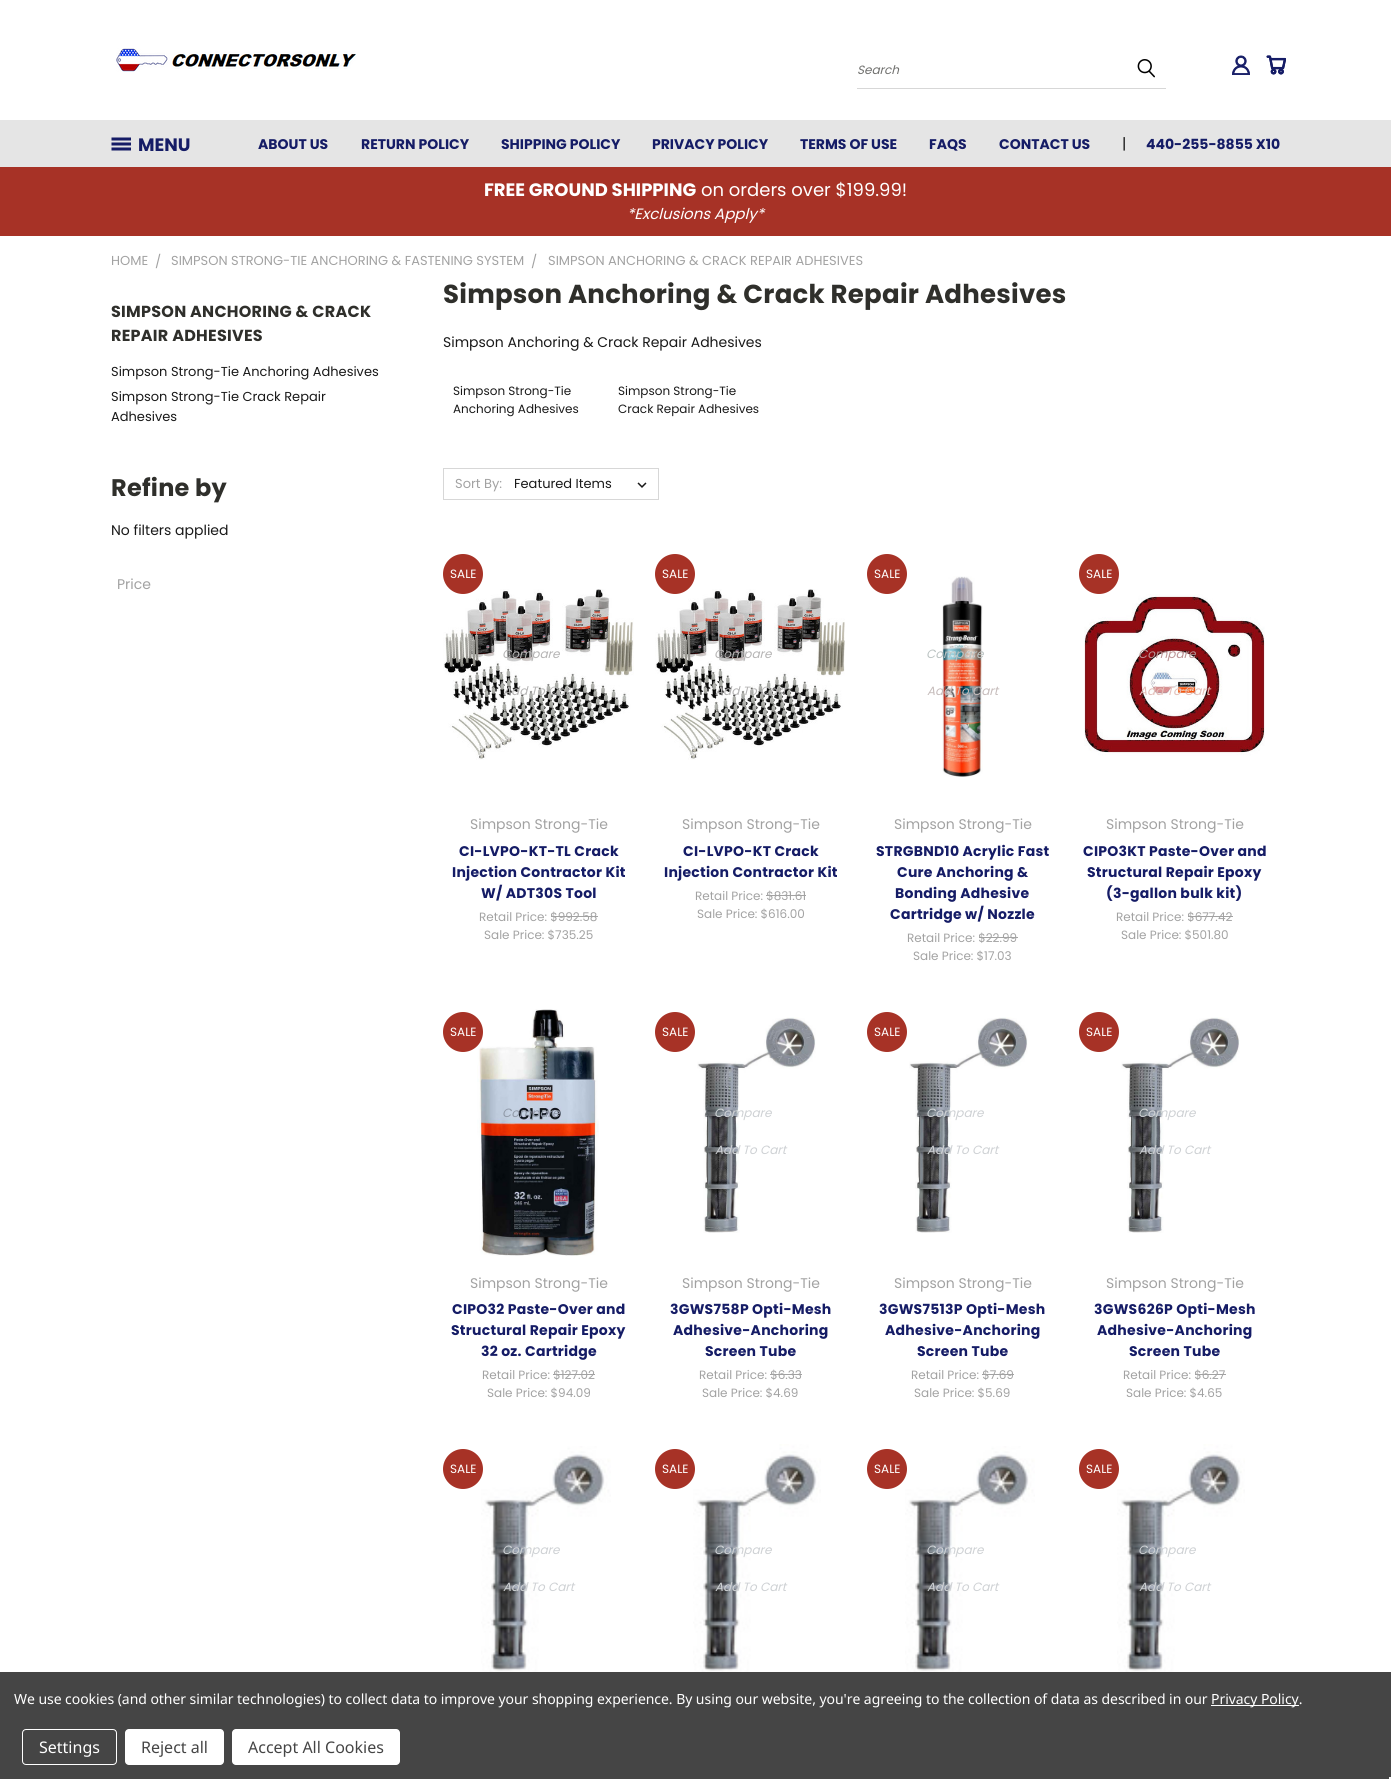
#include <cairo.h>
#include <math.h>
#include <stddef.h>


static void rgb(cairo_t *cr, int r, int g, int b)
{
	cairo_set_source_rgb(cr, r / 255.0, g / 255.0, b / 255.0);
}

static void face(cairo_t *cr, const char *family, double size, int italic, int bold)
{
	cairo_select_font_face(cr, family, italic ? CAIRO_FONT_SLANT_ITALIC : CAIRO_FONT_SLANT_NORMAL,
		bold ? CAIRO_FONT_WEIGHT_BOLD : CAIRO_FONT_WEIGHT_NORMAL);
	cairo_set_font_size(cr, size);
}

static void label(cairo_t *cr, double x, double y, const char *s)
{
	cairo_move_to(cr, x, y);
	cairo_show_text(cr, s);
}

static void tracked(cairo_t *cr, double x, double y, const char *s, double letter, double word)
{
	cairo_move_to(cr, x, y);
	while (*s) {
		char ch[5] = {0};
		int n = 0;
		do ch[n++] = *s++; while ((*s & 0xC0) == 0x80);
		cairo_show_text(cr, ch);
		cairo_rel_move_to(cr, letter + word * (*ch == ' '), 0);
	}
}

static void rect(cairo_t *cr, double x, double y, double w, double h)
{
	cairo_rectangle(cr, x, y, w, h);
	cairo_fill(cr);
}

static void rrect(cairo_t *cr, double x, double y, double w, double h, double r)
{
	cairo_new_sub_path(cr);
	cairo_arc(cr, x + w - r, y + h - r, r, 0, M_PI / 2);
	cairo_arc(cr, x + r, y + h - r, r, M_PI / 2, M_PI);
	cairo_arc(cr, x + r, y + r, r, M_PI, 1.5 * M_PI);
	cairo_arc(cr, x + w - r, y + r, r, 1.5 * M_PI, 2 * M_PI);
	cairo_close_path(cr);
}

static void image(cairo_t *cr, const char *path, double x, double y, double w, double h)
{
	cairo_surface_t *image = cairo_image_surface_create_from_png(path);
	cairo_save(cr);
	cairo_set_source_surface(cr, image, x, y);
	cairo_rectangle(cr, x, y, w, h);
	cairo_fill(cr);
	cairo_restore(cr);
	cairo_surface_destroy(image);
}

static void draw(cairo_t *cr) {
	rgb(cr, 255, 255, 255);
	cairo_paint(cr);
	image(cr, "image0.png", 116, 48, 240, 24);
	rgb(cr, 215, 215, 215);
	rect(cr, 857, 88, 309, 1);
	face(cr, "Poppins", 12, 1, 0);
	rgb(cr, 112, 112, 110);
	label(cr, 857, 74, "Search");
	image(cr, "image1.png", 1137, 59, 18, 19);
	image(cr, "image2.png", 1232, 55, 18, 20);
	image(cr, "image3.png", 1266, 55, 20, 20);
	rgb(cr, 229, 229, 229);
	rect(cr, 0, 120, 1391, 47);
	image(cr, "image4.png", 111, 137, 20, 14);
	face(cr, "Poppins", 18, 0, 1);
	rgb(cr, 21, 28, 102);
	label(cr, 138, 151, "MENU");
	face(cr, "Poppins", 14, 0, 1);
	label(cr, 258, 149, "ABOUT US");
	label(cr, 361, 149, "RETURN POLICY");
	label(cr, 501, 149, "SHIPPING POLICY");
	label(cr, 652, 149, "PRIVACY POLICY");
	label(cr, 800, 149, "TERMS OF USE");
	label(cr, 929, 149, "FAQS");
	label(cr, 999, 149, "CONTACT US");
	face(cr, "Poppins", 15, 0, 0);
	rgb(cr, 25, 25, 25);
	label(cr, 1122, 149, "|");
	face(cr, "Poppins", 14, 0, 1);
	rgb(cr, 21, 28, 102);
	label(cr, 1146, 149, "440-255-8855 X10");
	rgb(cr, 167, 50, 38);
	rect(cr, 0, 167, 1391, 69);
	face(cr, "Poppins", 18, 0, 1);
	rgb(cr, 255, 255, 255);
	label(cr, 484, 196, "FREE GROUND SHIPPING");
	face(cr, "Poppins", 18, 0, 0);
	label(cr, 701, 196, "on orders over $199.99!");
	face(cr, "Poppins", 15, 1, 0);
	label(cr, 627, 219, "*Exclusions Apply*");
	face(cr, "Poppins", 13, 0, 0);
	rgb(cr, 162, 162, 162);
	label(cr, 111, 265, "HOME");
	label(cr, 155, 266, "/");
	label(cr, 171, 265, "SIMPSON STRONG-TIE ANCHORING & FASTENING SYSTEM");
	label(cr, 531, 266, "/");
	label(cr, 548, 265, "SIMPSON ANCHORING & CRACK REPAIR ADHESIVES");
	face(cr, "Poppins", 16, 0, 1);
	rgb(cr, 47, 47, 43);
	tracked(cr, 111, 317, "SIMPSON ANCHORING & CRACK", 0.25, 0);
	tracked(cr, 111, 341, "REPAIR ADHESIVES", 0.25, 0);
	face(cr, "Poppins", 13, 0, 0);
	rgb(cr, 25, 25, 25);
	label(cr, 111, 376, "Simpson Strong-Tie Anchoring Adhesives");
	label(cr, 111, 401, "Simpson Strong-Tie Crack Repair");
	label(cr, 111, 421, "Adhesives");
	face(cr, "Poppins", 24, 0, 1);
	rgb(cr, 47, 47, 43);
	tracked(cr, 111, 496, "Refine by", 0.25, 0);
	face(cr, "Poppins", 14, 0, 0);
	rgb(cr, 25, 25, 25);
	label(cr, 111, 535, "No filters applied");
	rgb(cr, 162, 162, 162);
	label(cr, 117, 589, "Price");
	face(cr, "Poppins", 26, 0, 1);
	rgb(cr, 47, 47, 43);
	tracked(cr, 443, 303, "Simpson Anchoring & Crack Repair Adhesives", 0.25, 0);
	face(cr, "Poppins", 14, 0, 0);
	rgb(cr, 25, 25, 25);
	label(cr, 443, 347, "Simpson Anchoring & Crack Repair Adhesives");
	face(cr, "Poppins", 12, 0, 0);
	label(cr, 453, 395, "Simpson Strong-Tie");
	label(cr, 453, 413, "Anchoring Adhesives");
	label(cr, 618, 395, "Simpson Strong-Tie");
	label(cr, 618, 413, "Crack Repair Adhesives");
	cairo_rectangle(cr, 443.5, 468.5, 215, 31);
	rgb(cr, 215, 215, 215);
	cairo_set_line_width(cr, 1);
	cairo_stroke(cr);
	face(cr, "Poppins", 13, 0, 0);
	rgb(cr, 162, 162, 162);
	label(cr, 455, 488, "Sort By:");
	image(cr, "image5.png", 637, 482, 10, 6);
	rgb(cr, 25, 25, 25);
	label(cr, 514, 488, "Featured Items");
	image(cr, "image6.png", 443, 589, 191, 171);
	rgb(cr, 167, 50, 38);
	cairo_arc(cr, 463, 574, 20, 0, 2 * M_PI);
	cairo_fill(cr);
	face(cr, "Poppins", 12, 0, 0);
	rgb(cr, 255, 255, 255);
	label(cr, 450, 578, "SALE");
	face(cr, "Poppins", 12, 1, 0);
	rgb(cr, 181, 180, 180);
	label(cr, 502, 658, "Compare");
	label(cr, 503, 695, "Add To Cart");
	face(cr, "Poppins", 14, 0, 0);
	rgb(cr, 162, 162, 162);
	label(cr, 470, 829, "Simpson Strong-Tie");
	face(cr, "Poppins", 14, 0, 1);
	rgb(cr, 21, 28, 102);
	tracked(cr, 459, 856, "CI-LVPO-KT-TL Crack", 0.25, 0);
	tracked(cr, 452, 877, "Injection Contractor Kit", 0.25, 0);
	tracked(cr, 481, 898, "W/ ADT30S Tool", 0.25, 0);
	face(cr, "Poppins", 12, 0, 0);
	rgb(cr, 162, 162, 162);
	label(cr, 479, 921, "Retail Price: $992.58");
	rect(cr, 551, 916, 47, 1);
	label(cr, 484, 939, "Sale Price: $735.25");
	image(cr, "image7.png", 655, 589, 190, 171);
	rgb(cr, 167, 50, 38);
	cairo_arc(cr, 675, 574, 20, 0, 2 * M_PI);
	cairo_fill(cr);
	rgb(cr, 255, 255, 255);
	label(cr, 662, 578, "SALE");
	face(cr, "Poppins", 12, 1, 0);
	rgb(cr, 181, 180, 180);
	label(cr, 714, 658, "Compare");
	label(cr, 715, 695, "Add To Cart");
	face(cr, "Poppins", 14, 0, 0);
	rgb(cr, 162, 162, 162);
	label(cr, 682, 829, "Simpson Strong-Tie");
	face(cr, "Poppins", 14, 0, 1);
	rgb(cr, 21, 28, 102);
	tracked(cr, 683, 856, "CI-LVPO-KT Crack", 0.25, 0);
	tracked(cr, 664, 877, "Injection Contractor Kit", 0.25, 0);
	face(cr, "Poppins", 12, 0, 0);
	rgb(cr, 162, 162, 162);
	label(cr, 695, 900, "Retail Price: $831.61");
	rect(cr, 766, 895, 40, 1);
	label(cr, 697, 918, "Sale Price: $616.00");
	rgb(cr, 167, 50, 38);
	cairo_new_path(cr);
	cairo_arc(cr, 887, 574, 20, 0, 2 * M_PI);
	cairo_fill(cr);
	rgb(cr, 255, 255, 255);
	label(cr, 874, 578, "SALE");
	image(cr, "image8.png", 942, 576, 41, 201);
	face(cr, "Poppins", 12, 1, 0);
	rgb(cr, 187, 195, 194);
	label(cr, 926, 658, "Compare");
	rgb(cr, 198, 188, 187);
	label(cr, 927, 695, "Add To Cart");
	face(cr, "Poppins", 14, 0, 0);
	rgb(cr, 162, 162, 162);
	label(cr, 894, 829, "Simpson Strong-Tie");
	face(cr, "Poppins", 14, 0, 1);
	rgb(cr, 21, 28, 102);
	tracked(cr, 876, 856, "STRGBND10 Acrylic Fast", 0.25, 0);
	tracked(cr, 897, 877, "Cure Anchoring &", 0.25, 0);
	tracked(cr, 895, 898, "Bonding Adhesive", 0.25, 0);
	tracked(cr, 890, 919, "Cartridge w/ Nozzle", 0.25, 0);
	face(cr, "Poppins", 12, 0, 0);
	rgb(cr, 162, 162, 162);
	label(cr, 907, 942, "Retail Price: $22.99");
	rect(cr, 979, 937, 39, 1);
	label(cr, 913, 960, "Sale Price: $17.03");
	rgb(cr, 167, 50, 38);
	cairo_new_path(cr);
	cairo_arc(cr, 1099, 574, 20, 0, 2 * M_PI);
	cairo_fill(cr);
	rgb(cr, 255, 255, 255);
	label(cr, 1086, 578, "SALE");
	image(cr, "image9.png", 1084, 594, 181, 162);
	face(cr, "Poppins", 12, 1, 0);
	rgb(cr, 188, 147, 149);
	label(cr, 1138, 658, "Compare");
	rgb(cr, 228, 191, 185);
	label(cr, 1139, 695, "Add To Cart");
	face(cr, "Poppins", 14, 0, 0);
	rgb(cr, 162, 162, 162);
	label(cr, 1106, 829, "Simpson Strong-Tie");
	face(cr, "Poppins", 14, 0, 1);
	rgb(cr, 21, 28, 102);
	tracked(cr, 1083, 856, "CIPO3KT Paste-Over and", 0.25, 0);
	tracked(cr, 1087, 877, "Structural Repair Epoxy", 0.25, 0);
	tracked(cr, 1106, 898, "(3-gallon bulk kit)", 0.25, 0);
	face(cr, "Poppins", 12, 0, 0);
	rgb(cr, 162, 162, 162);
	label(cr, 1116, 921, "Retail Price: $677.42");
	rect(cr, 1188, 916, 45, 1);
	label(cr, 1121, 939, "Sale Price: $501.80");
	image(cr, "image10.png", 477, 1009, 122, 247);
	rgb(cr, 167, 50, 38);
	cairo_arc(cr, 463, 1032, 20, 0, 2 * M_PI);
	cairo_fill(cr);
	rgb(cr, 255, 255, 255);
	label(cr, 450, 1036, "SALE");
	face(cr, "Poppins", 12, 1, 0);
	rgb(cr, 145, 154, 168);
	label(cr, 502, 1117, "Compare");
	face(cr, "Poppins", 14, 0, 0);
	rgb(cr, 162, 162, 162);
	label(cr, 470, 1288, "Simpson Strong-Tie");
	face(cr, "Poppins", 14, 0, 1);
	rgb(cr, 21, 28, 102);
	tracked(cr, 452, 1314, "CIPO32 Paste-Over and", 0.25, 0);
	tracked(cr, 451, 1335, "Structural Repair Epoxy", 0.25, 0);
	tracked(cr, 481, 1356, "32 oz. Cartridge", 0.25, 0);
	face(cr, "Poppins", 12, 0, 0);
	rgb(cr, 162, 162, 162);
	label(cr, 482, 1379, "Retail Price: $127.02");
	rect(cr, 553, 1374, 42, 1);
	label(cr, 487, 1397, "Sale Price: $94.09");
	rgb(cr, 167, 50, 38);
	cairo_new_path(cr);
	cairo_arc(cr, 675, 1032, 20, 0, 2 * M_PI);
	cairo_fill(cr);
	rgb(cr, 255, 255, 255);
	label(cr, 662, 1036, "SALE");
	image(cr, "image11.png", 697, 1017, 119, 216);
	face(cr, "Poppins", 12, 1, 0);
	rgb(cr, 206, 209, 212);
	label(cr, 714, 1117, "Compare");
	label(cr, 715, 1154, "Add To Cart");
	face(cr, "Poppins", 14, 0, 0);
	rgb(cr, 162, 162, 162);
	label(cr, 682, 1288, "Simpson Strong-Tie");
	face(cr, "Poppins", 14, 0, 1);
	rgb(cr, 21, 28, 102);
	tracked(cr, 670, 1314, "3GWS758P Opti-Mesh", 0.25, 0);
	tracked(cr, 673, 1335, "Adhesive-Anchoring", 0.25, 0);
	tracked(cr, 705, 1356, "Screen Tube", 0.25, 0);
	face(cr, "Poppins", 12, 0, 0);
	rgb(cr, 162, 162, 162);
	label(cr, 699, 1379, "Retail Price: $6.33");
	rect(cr, 770, 1374, 32, 1);
	label(cr, 702, 1397, "Sale Price: $4.69");
	rgb(cr, 167, 50, 38);
	cairo_new_path(cr);
	cairo_arc(cr, 887, 1032, 20, 0, 2 * M_PI);
	cairo_fill(cr);
	rgb(cr, 255, 255, 255);
	label(cr, 874, 1036, "SALE");
	image(cr, "image12.png", 909, 1017, 119, 216);
	face(cr, "Poppins", 12, 1, 0);
	rgb(cr, 206, 209, 212);
	label(cr, 926, 1117, "Compare");
	label(cr, 927, 1154, "Add To Cart");
	face(cr, "Poppins", 14, 0, 0);
	rgb(cr, 162, 162, 162);
	label(cr, 894, 1288, "Simpson Strong-Tie");
	face(cr, "Poppins", 14, 0, 1);
	rgb(cr, 21, 28, 102);
	tracked(cr, 879, 1314, "3GWS7513P Opti-Mesh", 0.25, 0);
	tracked(cr, 885, 1335, "Adhesive-Anchoring", 0.25, 0);
	tracked(cr, 917, 1356, "Screen Tube", 0.25, 0);
	face(cr, "Poppins", 12, 0, 0);
	rgb(cr, 162, 162, 162);
	label(cr, 911, 1379, "Retail Price: $7.69");
	rect(cr, 982, 1374, 32, 1);
	label(cr, 914, 1397, "Sale Price: $5.69");
	rgb(cr, 167, 50, 38);
	cairo_new_path(cr);
	cairo_arc(cr, 1099, 1032, 20, 0, 2 * M_PI);
	cairo_fill(cr);
	rgb(cr, 255, 255, 255);
	label(cr, 1086, 1036, "SALE");
	image(cr, "image13.png", 1121, 1017, 119, 216);
	face(cr, "Poppins", 12, 1, 0);
	rgb(cr, 206, 209, 212);
	label(cr, 1138, 1117, "Compare");
	label(cr, 1139, 1154, "Add To Cart");
	face(cr, "Poppins", 14, 0, 0);
	rgb(cr, 162, 162, 162);
	label(cr, 1106, 1288, "Simpson Strong-Tie");
	face(cr, "Poppins", 14, 0, 1);
	rgb(cr, 21, 28, 102);
	tracked(cr, 1094, 1314, "3GWS626P Opti-Mesh", 0.25, 0);
	tracked(cr, 1097, 1335, "Adhesive-Anchoring", 0.25, 0);
	tracked(cr, 1129, 1356, "Screen Tube", 0.25, 0);
	face(cr, "Poppins", 12, 0, 0);
	rgb(cr, 162, 162, 162);
	label(cr, 1123, 1379, "Retail Price: $6.27");
	rect(cr, 1195, 1374, 31, 1);
	label(cr, 1126, 1397, "Sale Price: $4.65");
	image(cr, "image14.png", 481, 1446, 130, 226);
	rgb(cr, 167, 50, 38);
	cairo_arc(cr, 463, 1469, 20, 0, 2 * M_PI);
	cairo_fill(cr);
	rgb(cr, 255, 255, 255);
	label(cr, 450, 1473, "SALE");
	face(cr, "Poppins", 12, 1, 0);
	rgb(cr, 206, 209, 212);
	label(cr, 502, 1554, "Compare");
	label(cr, 503, 1591, "Add To Cart");
	image(cr, "image15.png", 693, 1444, 128, 228);
	rgb(cr, 167, 50, 38);
	cairo_arc(cr, 675, 1469, 20, 0, 2 * M_PI);
	cairo_fill(cr);
	face(cr, "Poppins", 12, 0, 0);
	rgb(cr, 255, 255, 255);
	label(cr, 662, 1473, "SALE");
	face(cr, "Poppins", 12, 1, 0);
	rgb(cr, 206, 209, 212);
	label(cr, 714, 1554, "Compare");
	label(cr, 715, 1591, "Add To Cart");
	image(cr, "image16.png", 905, 1446, 130, 226);
	rgb(cr, 167, 50, 38);
	cairo_arc(cr, 887, 1469, 20, 0, 2 * M_PI);
	cairo_fill(cr);
	face(cr, "Poppins", 12, 0, 0);
	rgb(cr, 255, 255, 255);
	label(cr, 874, 1473, "SALE");
	face(cr, "Poppins", 12, 1, 0);
	rgb(cr, 206, 209, 212);
	label(cr, 926, 1554, "Compare");
	label(cr, 927, 1591, "Add To Cart");
	image(cr, "image17.png", 1117, 1444, 128, 228);
	rgb(cr, 167, 50, 38);
	cairo_arc(cr, 1099, 1469, 20, 0, 2 * M_PI);
	cairo_fill(cr);
	face(cr, "Poppins", 12, 0, 0);
	rgb(cr, 255, 255, 255);
	label(cr, 1086, 1473, "SALE");
	face(cr, "Poppins", 12, 1, 0);
	rgb(cr, 206, 209, 212);
	label(cr, 1138, 1554, "Compare");
	label(cr, 1139, 1591, "Add To Cart");
	rgb(cr, 69, 69, 69);
	rect(cr, 0, 1672, 1391, 107);
	face(cr, "Noto Sans", 14, 0, 0);
	rgb(cr, 255, 255, 255);
	tracked(cr, 14, 1704, "We use cookies (and other similar technologies) to collect data to improve your shopping experience. By using our website, you're agreeing to the collection of data as described in our", -0.05, 0);
	rect(cr, 1211, 1705, 88, 1);
	tracked(cr, 1211, 1704, "Privacy Policy.", -0.05, 0);
	rrect(cr, 22.5, 1729.5, 94, 35, 3.5);
	cairo_stroke(cr);
	face(cr, "Noto Sans", 16, 0, 0);
	label(cr, 39, 1753, "Settings");
	rrect(cr, 125, 1729, 99, 36, 4);
	cairo_fill(cr);
	rgb(cr, 69, 69, 69);
	label(cr, 141, 1753, "Reject all");
	rgb(cr, 255, 255, 255);
	rrect(cr, 232, 1729, 168, 36, 4);
	cairo_fill(cr);
	rgb(cr, 69, 69, 69);
	label(cr, 248, 1753, "Accept All Cookies");
	rgb(cr, 245, 245, 245);
	rect(cr, 1389, 1777, 2, 2);
}

int main(void) {
	cairo_surface_t *surface = cairo_image_surface_create(CAIRO_FORMAT_RGB24, 1391, 1779);
	cairo_t *cr = cairo_create(surface);
	cairo_font_options_t *options = cairo_font_options_create();
	cairo_font_options_set_hint_metrics(options, CAIRO_HINT_METRICS_OFF);
	cairo_font_options_set_hint_style(options, CAIRO_HINT_STYLE_NONE);
	cairo_set_font_options(cr, options);
	cairo_set_miter_limit(cr, 4);
	draw(cr);
	cairo_surface_write_to_png(surface, "render.png");
	cairo_font_options_destroy(options);
	cairo_destroy(cr);
	cairo_surface_destroy(surface);
	return 0;
}
